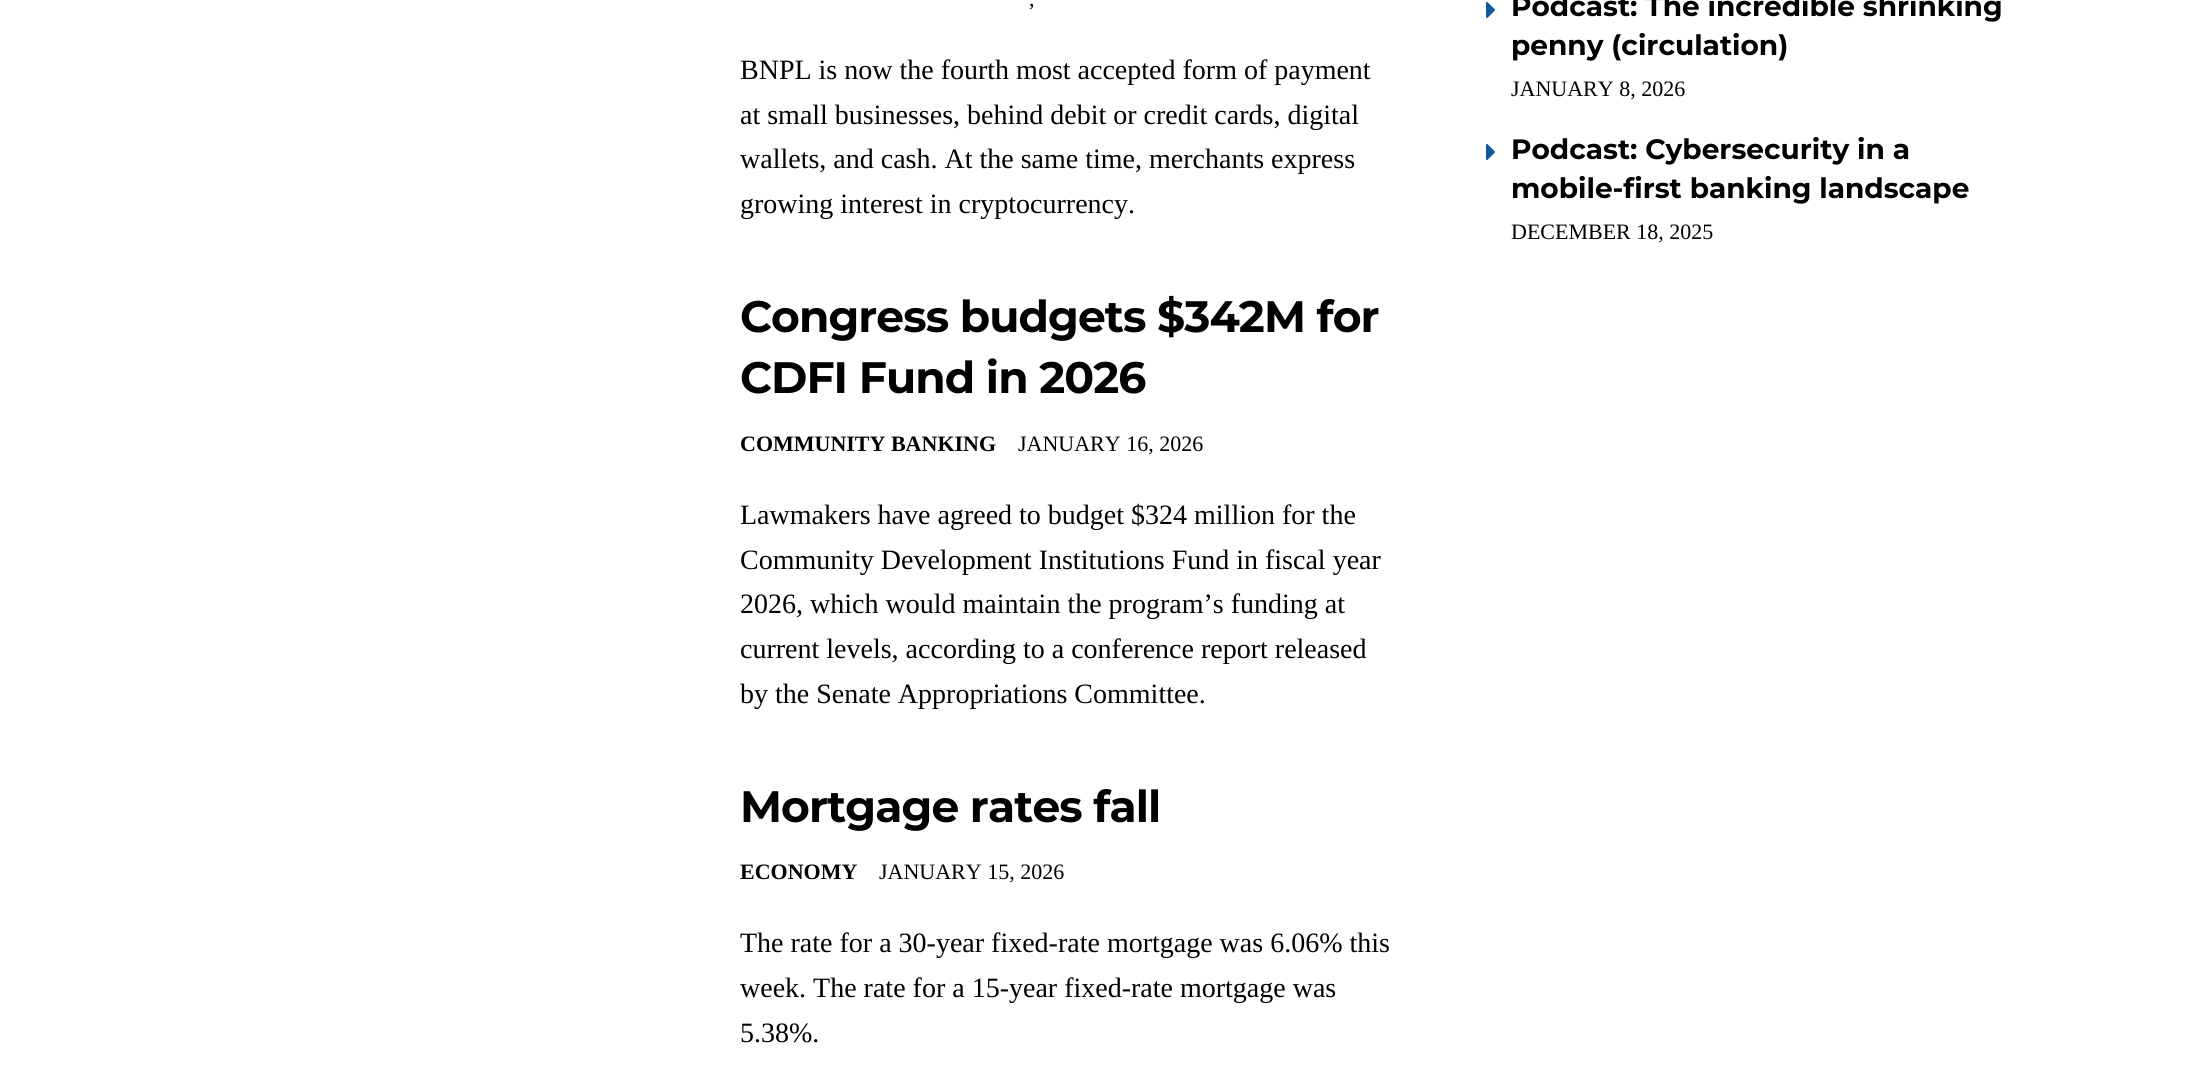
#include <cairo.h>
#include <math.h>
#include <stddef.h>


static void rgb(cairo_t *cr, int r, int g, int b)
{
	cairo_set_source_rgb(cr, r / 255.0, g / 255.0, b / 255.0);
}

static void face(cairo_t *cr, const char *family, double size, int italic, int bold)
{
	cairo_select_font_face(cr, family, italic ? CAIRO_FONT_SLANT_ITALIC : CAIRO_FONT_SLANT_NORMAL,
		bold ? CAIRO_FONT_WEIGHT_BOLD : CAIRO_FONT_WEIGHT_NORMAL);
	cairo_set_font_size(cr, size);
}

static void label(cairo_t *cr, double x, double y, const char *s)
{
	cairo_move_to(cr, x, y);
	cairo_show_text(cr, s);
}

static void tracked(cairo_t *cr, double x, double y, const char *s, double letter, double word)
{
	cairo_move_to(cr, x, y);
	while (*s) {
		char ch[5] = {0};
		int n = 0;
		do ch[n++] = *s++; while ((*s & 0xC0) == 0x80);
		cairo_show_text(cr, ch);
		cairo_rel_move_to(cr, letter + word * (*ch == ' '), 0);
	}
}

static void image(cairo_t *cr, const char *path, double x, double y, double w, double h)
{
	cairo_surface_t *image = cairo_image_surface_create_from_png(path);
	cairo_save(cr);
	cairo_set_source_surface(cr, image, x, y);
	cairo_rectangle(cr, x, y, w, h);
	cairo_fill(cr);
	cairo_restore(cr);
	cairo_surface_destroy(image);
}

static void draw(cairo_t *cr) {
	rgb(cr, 255, 255, 255);
	cairo_paint(cr);
	face(cr, "Liberation Serif", 22, 0, 0);
	rgb(cr, 0, 0, 0);
	label(cr, 1029, 6, ",");
	face(cr, "Liberation Serif", 28, 0, 0);
	label(cr, 740, 79, "BNPL is now the fourth most accepted form of payment");
	label(cr, 740, 124, "at small businesses, behind debit or credit cards, digital");
	label(cr, 740, 168, "wallets, and cash. At the same time, merchants express");
	label(cr, 740, 213, "growing interest in cryptocurrency.");
	face(cr, "Montserrat", 44, 0, 1);
	tracked(cr, 740, 332, "Congress budgets $342M for", -0.9, 0);
	tracked(cr, 740, 393, "CDFI Fund in 2026", -0.9, 0);
	face(cr, "Liberation Serif", 22, 0, 1);
	label(cr, 740, 451, "COMMUNITY BANKING");
	face(cr, "Liberation Serif", 22, 0, 0);
	label(cr, 1018, 451, "JANUARY 16, 2026");
	face(cr, "Liberation Serif", 28, 0, 0);
	label(cr, 740, 524, "Lawmakers have agreed to budget $324 million for the");
	label(cr, 740, 569, "Community Development Institutions Fund in fiscal year");
	label(cr, 740, 613, "2026, which would maintain the program’s funding at");
	label(cr, 740, 658, "current levels, according to a conference report released");
	label(cr, 740, 703, "by the Senate Appropriations Committee.");
	face(cr, "Montserrat", 44, 0, 1);
	tracked(cr, 740, 822, "Mortgage rates fall", -0.9, 0);
	face(cr, "Liberation Serif", 22, 0, 1);
	label(cr, 740, 879, "ECONOMY");
	face(cr, "Liberation Serif", 22, 0, 0);
	label(cr, 879, 879, "JANUARY 15, 2026");
	face(cr, "Liberation Serif", 28, 0, 0);
	label(cr, 740, 952, "The rate for a 30-year fixed-rate mortgage was 6.06% this");
	label(cr, 740, 997, "week. The rate for a 15-year fixed-rate mortgage was");
	label(cr, 740, 1042, "5.38%.");
	image(cr, "image0.png", 1486, 2, 9, 16);
	face(cr, "Montserrat", 28, 0, 1);
	label(cr, 1511, 16, "Podcast: The incredible shrinking");
	label(cr, 1511, 55, "penny (circulation)");
	face(cr, "Liberation Serif", 22, 0, 0);
	label(cr, 1511, 96, "JANUARY 8, 2026");
	image(cr, "image0.png", 1486, 144, 9, 16);
	face(cr, "Montserrat", 28, 0, 1);
	label(cr, 1511, 159, "Podcast: Cybersecurity in a");
	label(cr, 1511, 198, "mobile-first banking landscape");
	face(cr, "Liberation Serif", 22, 0, 0);
	label(cr, 1511, 239, "DECEMBER 18, 2025");
}

int main(void) {
	cairo_surface_t *surface = cairo_image_surface_create(CAIRO_FORMAT_RGB24, 2200, 1073);
	cairo_t *cr = cairo_create(surface);
	cairo_font_options_t *options = cairo_font_options_create();
	cairo_font_options_set_hint_metrics(options, CAIRO_HINT_METRICS_OFF);
	cairo_font_options_set_hint_style(options, CAIRO_HINT_STYLE_NONE);
	cairo_set_font_options(cr, options);
	cairo_set_miter_limit(cr, 4);
	draw(cr);
	cairo_surface_write_to_png(surface, "render.png");
	cairo_font_options_destroy(options);
	cairo_destroy(cr);
	cairo_surface_destroy(surface);
	return 0;
}
